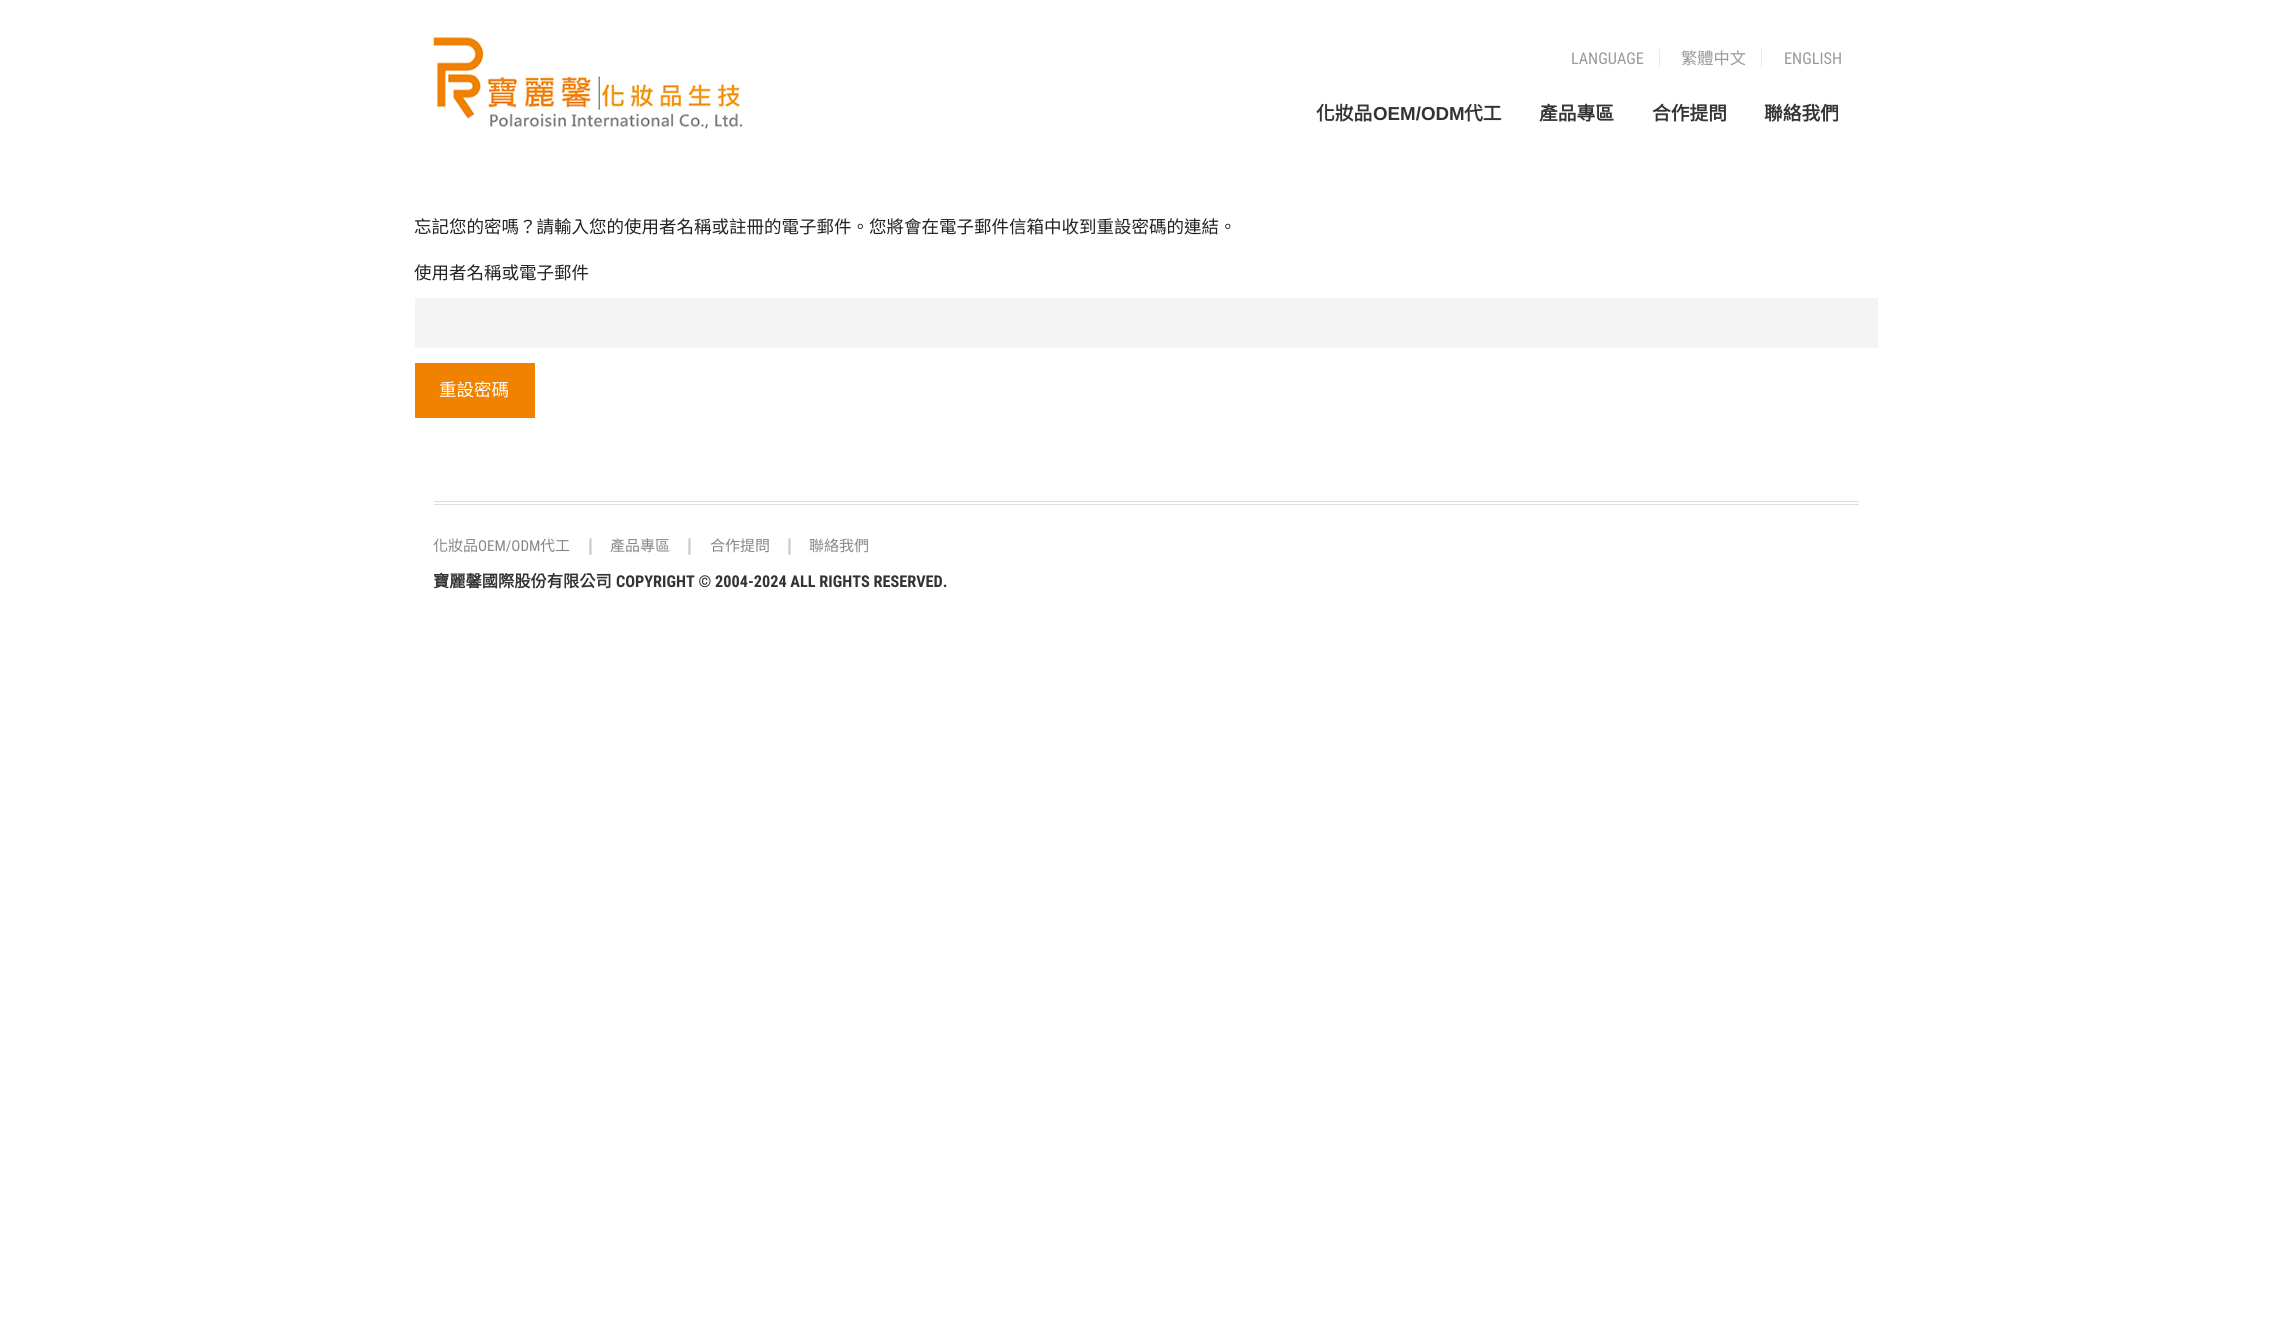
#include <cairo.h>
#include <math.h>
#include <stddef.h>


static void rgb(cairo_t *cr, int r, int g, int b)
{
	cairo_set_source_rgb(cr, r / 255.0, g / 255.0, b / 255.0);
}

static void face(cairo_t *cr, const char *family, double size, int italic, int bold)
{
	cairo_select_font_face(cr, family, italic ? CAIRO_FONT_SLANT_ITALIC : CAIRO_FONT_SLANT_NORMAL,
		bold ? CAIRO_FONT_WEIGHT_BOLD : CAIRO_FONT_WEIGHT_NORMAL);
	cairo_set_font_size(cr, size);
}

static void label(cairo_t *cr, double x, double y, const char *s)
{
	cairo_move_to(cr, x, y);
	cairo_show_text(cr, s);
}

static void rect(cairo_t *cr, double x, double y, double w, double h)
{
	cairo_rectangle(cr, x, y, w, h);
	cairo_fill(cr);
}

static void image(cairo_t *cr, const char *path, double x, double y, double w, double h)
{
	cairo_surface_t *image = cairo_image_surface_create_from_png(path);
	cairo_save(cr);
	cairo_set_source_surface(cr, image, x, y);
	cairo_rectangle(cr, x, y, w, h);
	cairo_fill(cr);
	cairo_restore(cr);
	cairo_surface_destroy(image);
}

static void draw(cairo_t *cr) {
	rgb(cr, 255, 255, 255);
	cairo_paint(cr);
	image(cr, "image0.png", 433, 37, 310, 92);
	face(cr, "Roboto Condensed", 16.25, 0, 0);
	rgb(cr, 153, 153, 153);
	label(cr, 1571, 64, "LANGUAGE");
	rgb(cr, 235, 235, 235);
	rect(cr, 1659, 49, 1, 19);
	face(cr, "Noto Sans CJK TC", 16.25, 0, 0);
	rgb(cr, 153, 153, 153);
	label(cr, 1681, 64, "繁體中文");
	rgb(cr, 235, 235, 235);
	rect(cr, 1761, 49, 1, 19);
	face(cr, "Roboto Condensed", 16.25, 0, 0);
	rgb(cr, 153, 153, 153);
	label(cr, 1784, 64, "ENGLISH");
	face(cr, "Noto Sans CJK TC", 18.75, 0, 1);
	rgb(cr, 51, 51, 51);
	label(cr, 1316, 120, "化妝品");
	face(cr, "Liberation Sans", 18.75, 0, 1);
	label(cr, 1373, 120, "OEM/ODM");
	face(cr, "Noto Sans CJK TC", 18.75, 0, 1);
	label(cr, 1464, 120, "代工");
	label(cr, 1539, 120, "產品專區");
	label(cr, 1652, 120, "合作提問");
	label(cr, 1764, 120, "聯絡我們");
	face(cr, "Noto Sans CJK TC", 17.5, 0, 0);
	rgb(cr, 34, 34, 34);
	label(cr, 414, 233, "忘記您的密嗎？請輸入您的使用者名稱或註冊的電子郵件。您將會在電子郵件信箱中收到重設密碼的連結。");
	label(cr, 414, 279, "使用者名稱或電子郵件");
	rgb(cr, 244, 244, 244);
	rect(cr, 415, 298, 1463, 50);
	rgb(cr, 240, 130, 0);
	rect(cr, 415, 363, 120, 55);
	rgb(cr, 255, 255, 255);
	label(cr, 439, 396, "重設密碼");
	rgb(cr, 221, 221, 221);
	rect(cr, 434, 501, 1425, 1);
	rect(cr, 434, 504, 1425, 1);
	face(cr, "Noto Sans CJK TC", 15, 0, 0);
	rgb(cr, 136, 136, 136);
	label(cr, 433, 551, "化妝品");
	face(cr, "Roboto Condensed", 15, 0, 0);
	label(cr, 478, 551, "OEM/ODM");
	face(cr, "Noto Sans CJK TC", 15, 0, 0);
	label(cr, 540, 551, "代工");
	face(cr, "Liberation Sans", 17.5, 0, 1);
	rgb(cr, 204, 204, 204);
	label(cr, 588, 551, "|");
	face(cr, "Noto Sans CJK TC", 15, 0, 0);
	rgb(cr, 136, 136, 136);
	label(cr, 610, 551, "產品專區");
	face(cr, "Liberation Sans", 17.5, 0, 1);
	rgb(cr, 204, 204, 204);
	label(cr, 687, 551, "|");
	face(cr, "Noto Sans CJK TC", 15, 0, 0);
	rgb(cr, 136, 136, 136);
	label(cr, 710, 551, "合作提問");
	face(cr, "Liberation Sans", 17.5, 0, 1);
	rgb(cr, 204, 204, 204);
	label(cr, 787, 551, "|");
	face(cr, "Noto Sans CJK TC", 15, 0, 0);
	rgb(cr, 136, 136, 136);
	label(cr, 809, 551, "聯絡我們");
	face(cr, "Noto Sans CJK TC", 16.25, 0, 1);
	rgb(cr, 51, 51, 51);
	label(cr, 433, 587, "寶麗馨國際股份有限公司");
	face(cr, "Roboto Condensed", 16.25, 0, 1);
	label(cr, 616, 587, "COPYRIGHT © 2004-2024 ALL RIGHTS RESERVED.");
}

int main(void) {
	cairo_surface_t *surface = cairo_image_surface_create(CAIRO_FORMAT_RGB24, 2291, 1340);
	cairo_t *cr = cairo_create(surface);
	cairo_font_options_t *options = cairo_font_options_create();
	cairo_font_options_set_hint_metrics(options, CAIRO_HINT_METRICS_OFF);
	cairo_font_options_set_hint_style(options, CAIRO_HINT_STYLE_NONE);
	cairo_set_font_options(cr, options);
	cairo_set_miter_limit(cr, 4);
	draw(cr);
	cairo_surface_write_to_png(surface, "render.png");
	cairo_font_options_destroy(options);
	cairo_destroy(cr);
	cairo_surface_destroy(surface);
	return 0;
}
